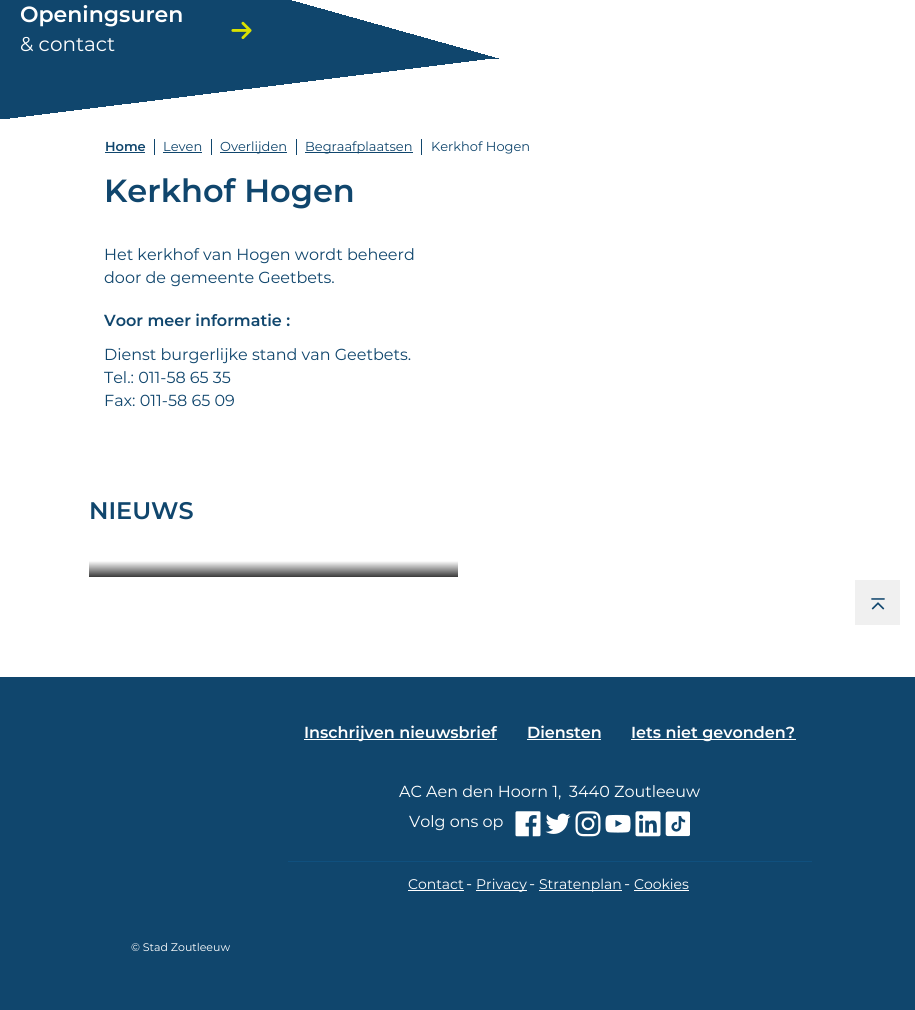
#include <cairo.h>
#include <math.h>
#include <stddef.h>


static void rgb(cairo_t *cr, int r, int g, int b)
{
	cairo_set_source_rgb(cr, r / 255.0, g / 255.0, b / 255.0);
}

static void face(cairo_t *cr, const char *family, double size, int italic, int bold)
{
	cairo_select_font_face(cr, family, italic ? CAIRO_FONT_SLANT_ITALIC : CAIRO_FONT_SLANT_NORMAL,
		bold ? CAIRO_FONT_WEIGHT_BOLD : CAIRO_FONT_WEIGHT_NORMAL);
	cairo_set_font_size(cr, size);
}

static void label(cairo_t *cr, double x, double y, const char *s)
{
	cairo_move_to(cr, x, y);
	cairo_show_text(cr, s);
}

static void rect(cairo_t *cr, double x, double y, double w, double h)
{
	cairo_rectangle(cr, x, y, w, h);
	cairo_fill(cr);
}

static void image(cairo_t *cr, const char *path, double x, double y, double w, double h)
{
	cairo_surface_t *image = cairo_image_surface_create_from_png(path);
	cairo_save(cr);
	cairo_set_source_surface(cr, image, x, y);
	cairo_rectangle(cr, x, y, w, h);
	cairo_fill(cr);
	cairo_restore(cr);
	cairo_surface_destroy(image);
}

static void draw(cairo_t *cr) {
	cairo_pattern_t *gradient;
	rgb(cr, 255, 255, 255);
	cairo_paint(cr);
	gradient = cairo_pattern_create_linear(288, -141, 215, 119);
	cairo_pattern_add_color_stop_rgba(gradient, 0.5, 1, 1, 1, 1);
	cairo_pattern_add_color_stop_rgba(gradient, 0.5, 0.063, 0.275, 0.427, 1);
	cairo_set_source(cr, gradient);
	cairo_pattern_destroy(gradient);
	rect(cr, 0, 0, 499, 59);
	face(cr, "Montserrat SemiBold", 22, 0, 0);
	rgb(cr, 255, 255, 255);
	label(cr, 20, 22, "Openingsuren");
	image(cr, "image0.png", 231, 21, 21, 18);
	face(cr, "Montserrat", 20, 0, 0);
	label(cr, 20, 51, "& contact");
	gradient = cairo_pattern_create_linear(259, 149, 244, 28);
	cairo_pattern_add_color_stop_rgba(gradient, 0.5, 0.063, 0.275, 0.427, 0);
	cairo_pattern_add_color_stop_rgba(gradient, 0.5, 0.063, 0.275, 0.427, 1);
	cairo_set_source(cr, gradient);
	cairo_pattern_destroy(gradient);
	rect(cr, 0, 59, 485, 60);
	face(cr, "Montserrat SemiBold", 13, 0, 0);
	rgb(cr, 16, 70, 109);
	label(cr, 105, 151, "Home");
	rect(cr, 105, 152, 40, 1);
	rect(cr, 154, 139, 1, 16);
	face(cr, "Montserrat", 13, 0, 0);
	label(cr, 163, 151, "Leven");
	rect(cr, 163, 152, 39, 1);
	rect(cr, 211, 139, 1, 16);
	rect(cr, 220, 152, 67, 1);
	label(cr, 220, 151, "Overlijden");
	rect(cr, 296, 139, 1, 16);
	rect(cr, 305, 152, 108, 1);
	label(cr, 305, 151, "Begraafplaatsen");
	rect(cr, 421, 139, 1, 16);
	label(cr, 431, 151, "Kerkhof Hogen");
	face(cr, "Montserrat SemiBold", 32, 0, 0);
	label(cr, 104, 202, "Kerkhof Hogen");
	face(cr, "Montserrat", 16, 0, 0);
	label(cr, 104, 260, "Het kerkhof van Hogen wordt beheerd");
	label(cr, 104, 283, "door de gemeente Geetbets.");
	face(cr, "Montserrat SemiBold", 16, 0, 0);
	label(cr, 104, 326, "Voor meer informatie :");
	face(cr, "Montserrat", 16, 0, 0);
	label(cr, 104, 360, "Dienst burgerlijke stand van Geetbets.");
	label(cr, 104, 383, "Tel.: 011-58 65 35");
	label(cr, 104, 406, "Fax: 011-58 65 09");
	face(cr, "Montserrat SemiBold", 24, 0, 0);
	label(cr, 89, 519, "NIEUWS");
	gradient = cairo_pattern_create_linear(274, 561, 274, 577);
	cairo_pattern_add_color_stop_rgba(gradient, 0, 1, 1, 1, 1);
	cairo_pattern_add_color_stop_rgba(gradient, 1, 0.224, 0.224, 0.224, 1);
	cairo_set_source(cr, gradient);
	cairo_pattern_destroy(gradient);
	rect(cr, 89, 561, 369, 16);
	rgb(cr, 240, 240, 240);
	cairo_rectangle(cr, 855.5, 580.5, 44, 44);
	cairo_fill_preserve(cr);
	cairo_set_line_width(cr, 1);
	cairo_stroke(cr);
	image(cr, "image1.png", 871, 598, 14, 12);
	rgb(cr, 16, 70, 109);
	rect(cr, 0, 677, 915, 333);
	rgb(cr, 255, 255, 255);
	rect(cr, 304, 739, 193, 1);
	face(cr, "Montserrat SemiBold", 16, 0, 0);
	label(cr, 304, 738, "Inschrijven nieuwsbrief");
	label(cr, 527, 738, "Diensten");
	rect(cr, 527, 739, 74, 1);
	rect(cr, 631, 739, 165, 1);
	label(cr, 631, 738, "Iets niet gevonden?");
	rgb(cr, 16, 80, 126);
	rect(cr, 288, 861, 524, 1);
	face(cr, "Montserrat", 16, 0, 0);
	rgb(cr, 255, 255, 255);
	label(cr, 399, 797, "AC Aen den Hoorn 1,");
	label(cr, 569, 797, "3440 Zoutleeuw");
	label(cr, 409, 827, "Volg ons op");
	image(cr, "image2.png", 515, 811, 26, 26);
	image(cr, "image3.png", 545, 813, 26, 21);
	image(cr, "image4.png", 575, 811, 26, 26);
	image(cr, "image5.png", 605, 814, 26, 19);
	image(cr, "image6.png", 635, 811, 26, 26);
	image(cr, "image7.png", 665, 811, 25, 26);
	face(cr, "Montserrat", 14, 0, 0);
	label(cr, 408, 889, "Contact");
	rect(cr, 408, 890, 56, 1);
	face(cr, "Montserrat", 16, 0, 0);
	label(cr, 466, 889, "-");
	rect(cr, 476, 890, 51, 1);
	face(cr, "Montserrat", 14, 0, 0);
	label(cr, 476, 889, "Privacy");
	face(cr, "Montserrat", 16, 0, 0);
	label(cr, 529, 889, "-");
	rect(cr, 539, 890, 83, 1);
	face(cr, "Montserrat", 14, 0, 0);
	label(cr, 539, 889, "Stratenplan");
	face(cr, "Montserrat", 16, 0, 0);
	label(cr, 624, 889, "-");
	face(cr, "Montserrat", 14, 0, 0);
	label(cr, 634, 889, "Cookies");
	rect(cr, 634, 890, 55, 1);
	face(cr, "Montserrat", 11, 0, 0);
	label(cr, 131, 951, "© Stad Zoutleeuw");
}

int main(void) {
	cairo_surface_t *surface = cairo_image_surface_create(CAIRO_FORMAT_RGB24, 915, 1010);
	cairo_t *cr = cairo_create(surface);
	cairo_font_options_t *options = cairo_font_options_create();
	cairo_font_options_set_hint_metrics(options, CAIRO_HINT_METRICS_OFF);
	cairo_font_options_set_hint_style(options, CAIRO_HINT_STYLE_NONE);
	cairo_set_font_options(cr, options);
	cairo_set_miter_limit(cr, 4);
	draw(cr);
	cairo_surface_write_to_png(surface, "render.png");
	cairo_font_options_destroy(options);
	cairo_destroy(cr);
	cairo_surface_destroy(surface);
	return 0;
}
